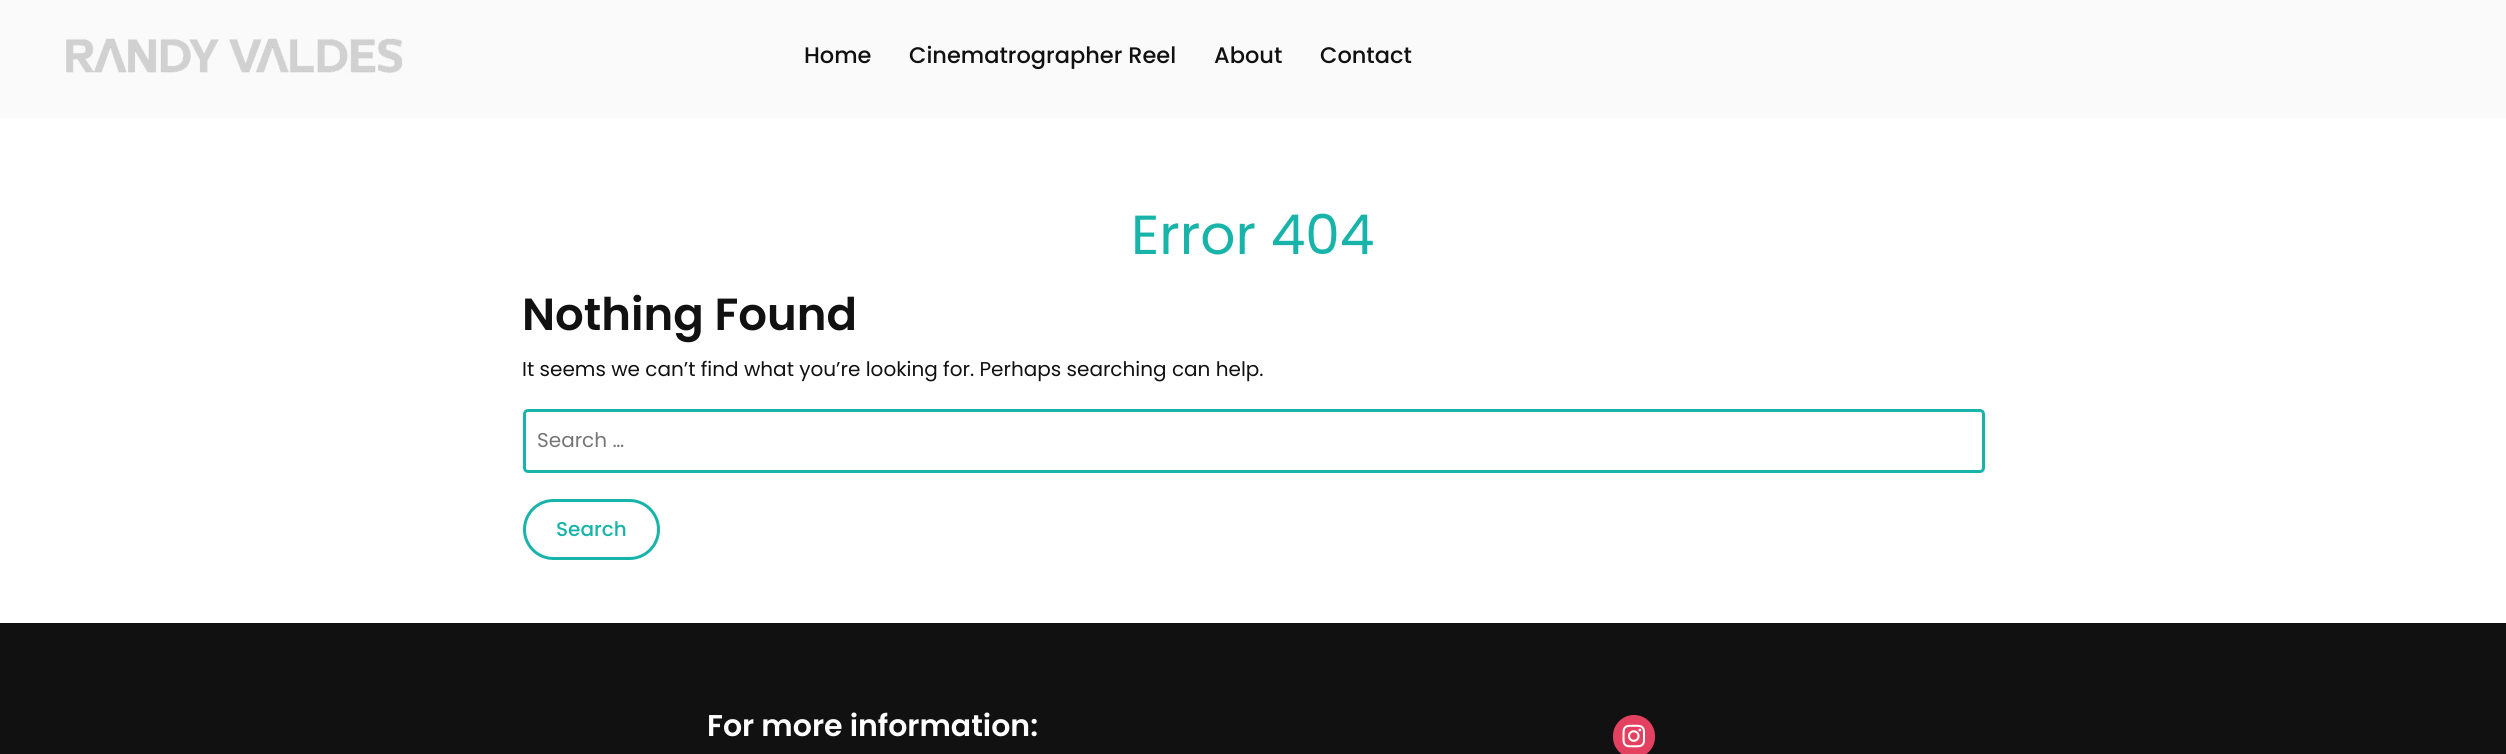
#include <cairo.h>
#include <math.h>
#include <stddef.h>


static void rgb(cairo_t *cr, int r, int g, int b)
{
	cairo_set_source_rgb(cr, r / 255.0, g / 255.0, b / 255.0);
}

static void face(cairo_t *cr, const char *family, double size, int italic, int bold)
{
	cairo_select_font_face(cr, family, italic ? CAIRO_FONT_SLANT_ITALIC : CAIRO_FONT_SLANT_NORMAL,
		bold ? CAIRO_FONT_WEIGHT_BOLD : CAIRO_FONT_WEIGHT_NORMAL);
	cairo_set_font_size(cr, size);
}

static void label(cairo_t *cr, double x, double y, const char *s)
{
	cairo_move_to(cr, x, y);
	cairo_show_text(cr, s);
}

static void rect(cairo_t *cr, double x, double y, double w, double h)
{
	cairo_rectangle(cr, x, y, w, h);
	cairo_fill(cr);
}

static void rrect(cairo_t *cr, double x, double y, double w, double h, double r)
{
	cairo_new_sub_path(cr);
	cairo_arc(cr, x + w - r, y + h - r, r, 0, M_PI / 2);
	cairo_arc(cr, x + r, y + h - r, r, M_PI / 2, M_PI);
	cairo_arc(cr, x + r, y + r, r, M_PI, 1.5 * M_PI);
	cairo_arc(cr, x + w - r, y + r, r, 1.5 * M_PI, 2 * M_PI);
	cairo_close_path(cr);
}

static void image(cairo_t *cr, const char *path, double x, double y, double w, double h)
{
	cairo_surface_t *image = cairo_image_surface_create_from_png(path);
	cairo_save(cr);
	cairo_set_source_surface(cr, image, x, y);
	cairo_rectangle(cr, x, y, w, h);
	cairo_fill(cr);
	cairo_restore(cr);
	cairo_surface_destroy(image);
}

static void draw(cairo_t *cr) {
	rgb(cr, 255, 255, 255);
	cairo_paint(cr);
	rgb(cr, 250, 250, 250);
	rect(cr, 0, 0, 2506, 118);
	image(cr, "image0.png", 66, 38, 337, 35);
	face(cr, "Poppins Medium", 22.5, 0, 0);
	rgb(cr, 17, 17, 17);
	label(cr, 804, 63, "Home");
	label(cr, 909, 63, "Cinematrographer Reel");
	label(cr, 1214, 63, "About");
	label(cr, 1320, 63, "Contact");
	face(cr, "Poppins", 55, 0, 0);
	rgb(cr, 24, 180, 170);
	label(cr, 1131, 254, "Error 404");
	face(cr, "Poppins SemiBold", 45, 0, 0);
	rgb(cr, 17, 17, 17);
	label(cr, 522, 330, "Nothing Found");
	face(cr, "Poppins", 20, 0, 0);
	label(cr, 522, 376, "It seems we can’t find what you’re looking for. Perhaps searching can help.");
	rrect(cr, 524.5, 410.5, 1459, 61, 3.5);
	rgb(cr, 24, 180, 170);
	cairo_set_line_width(cr, 3);
	cairo_stroke(cr);
	rgb(cr, 117, 117, 117);
	label(cr, 537, 447, "Search …");
	rrect(cr, 524.5, 500.5, 134, 58, 29);
	rgb(cr, 24, 180, 170);
	cairo_stroke(cr);
	face(cr, "Poppins Medium", 20, 0, 0);
	label(cr, 556, 536, "Search");
	rgb(cr, 17, 17, 17);
	rect(cr, 0, 623, 2506, 131);
	face(cr, "Poppins SemiBold", 30, 0, 0);
	rgb(cr, 255, 255, 255);
	label(cr, 707, 736, "For more information:");
	rgb(cr, 228, 64, 95);
	rrect(cr, 1613, 715, 42, 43, 21);
	cairo_fill(cr);
	image(cr, "image1.png", 1622, 724, 23, 24);
}

int main(void) {
	cairo_surface_t *surface = cairo_image_surface_create(CAIRO_FORMAT_RGB24, 2506, 754);
	cairo_t *cr = cairo_create(surface);
	cairo_font_options_t *options = cairo_font_options_create();
	cairo_font_options_set_hint_metrics(options, CAIRO_HINT_METRICS_OFF);
	cairo_font_options_set_hint_style(options, CAIRO_HINT_STYLE_NONE);
	cairo_set_font_options(cr, options);
	cairo_set_miter_limit(cr, 4);
	draw(cr);
	cairo_surface_write_to_png(surface, "render.png");
	cairo_font_options_destroy(options);
	cairo_destroy(cr);
	cairo_surface_destroy(surface);
	return 0;
}
